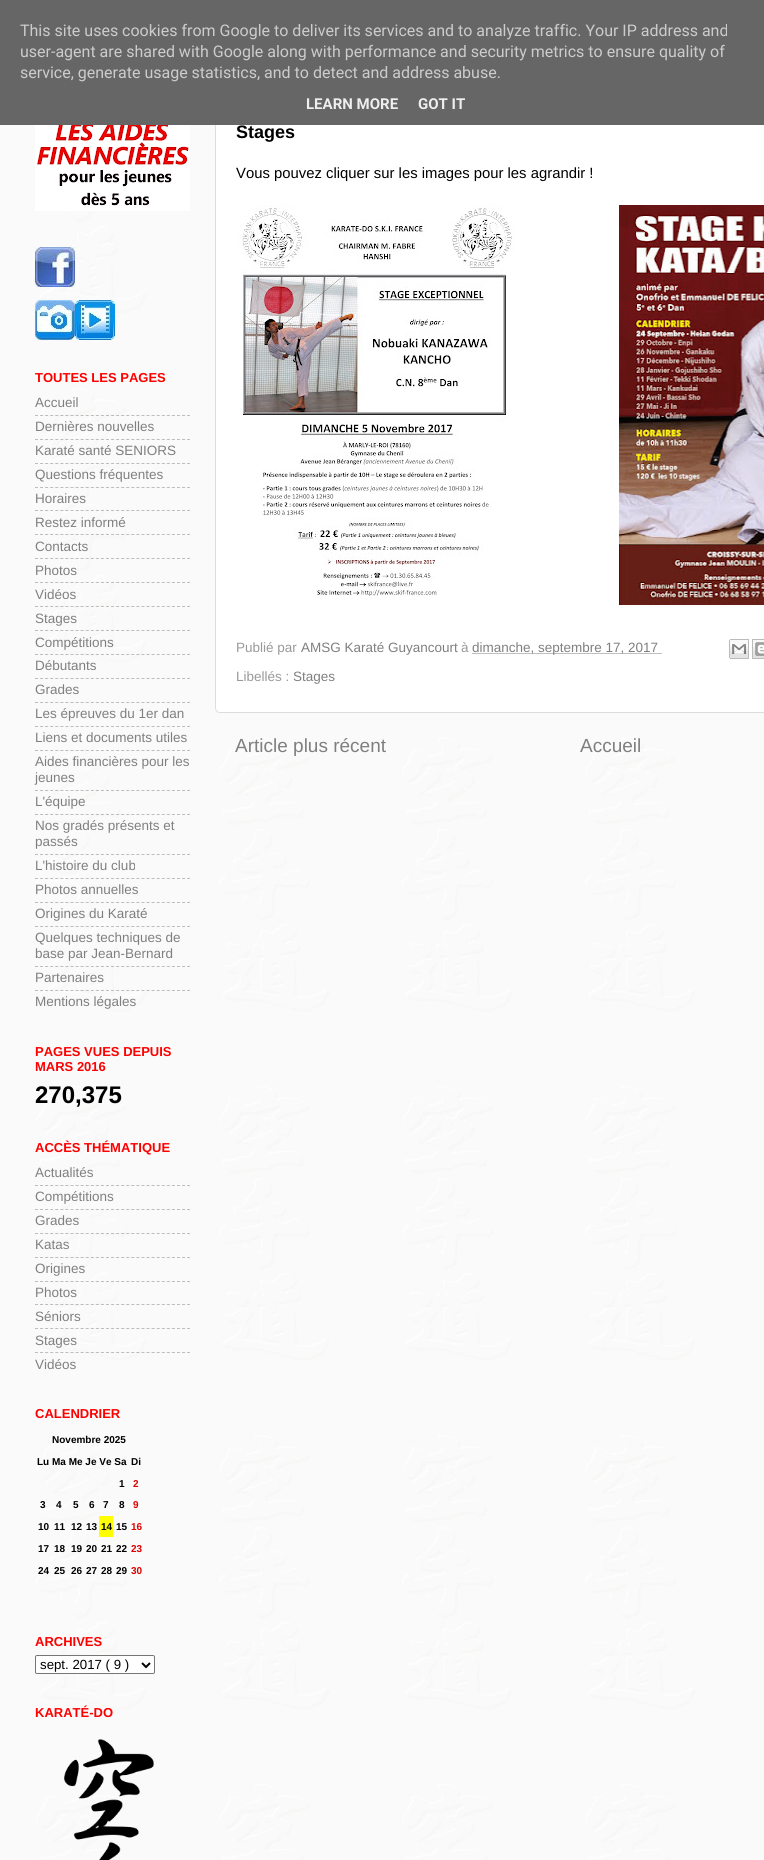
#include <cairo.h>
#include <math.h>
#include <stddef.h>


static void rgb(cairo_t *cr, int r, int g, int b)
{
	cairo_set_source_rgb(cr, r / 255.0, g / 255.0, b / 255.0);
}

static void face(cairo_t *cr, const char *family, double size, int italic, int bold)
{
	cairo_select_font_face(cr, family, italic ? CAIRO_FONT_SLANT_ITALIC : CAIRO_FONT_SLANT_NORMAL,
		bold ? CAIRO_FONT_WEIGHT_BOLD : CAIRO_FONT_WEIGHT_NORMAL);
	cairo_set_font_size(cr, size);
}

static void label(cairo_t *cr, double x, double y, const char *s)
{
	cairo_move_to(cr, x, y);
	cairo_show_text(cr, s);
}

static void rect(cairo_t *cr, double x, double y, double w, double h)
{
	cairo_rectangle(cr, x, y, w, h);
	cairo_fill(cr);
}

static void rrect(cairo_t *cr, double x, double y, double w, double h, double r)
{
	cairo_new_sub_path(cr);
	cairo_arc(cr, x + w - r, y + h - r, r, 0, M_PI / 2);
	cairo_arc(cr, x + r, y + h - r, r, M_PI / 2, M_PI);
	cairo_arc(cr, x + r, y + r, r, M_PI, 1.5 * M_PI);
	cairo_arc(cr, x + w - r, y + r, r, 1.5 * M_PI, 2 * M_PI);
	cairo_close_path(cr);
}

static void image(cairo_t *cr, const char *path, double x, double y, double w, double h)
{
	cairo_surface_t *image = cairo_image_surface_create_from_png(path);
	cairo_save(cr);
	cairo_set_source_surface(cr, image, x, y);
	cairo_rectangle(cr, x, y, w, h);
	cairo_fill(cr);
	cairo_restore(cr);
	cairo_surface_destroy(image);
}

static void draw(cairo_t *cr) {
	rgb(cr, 255, 255, 255);
	cairo_paint(cr);
	image(cr, "image0.png", 0, 125, 764, 1735);
	rgb(cr, 255, 255, 255);
	rrect(cr, 215.5, 106.5, 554, 606, 4.5);
	cairo_fill_preserve(cr);
	rgb(cr, 221, 221, 221);
	cairo_set_line_width(cr, 1);
	cairo_stroke(cr);
	rgb(cr, 102, 102, 102);
	rect(cr, 0, 0, 764, 125);
	face(cr, "Roboto", 16, 0, 0);
	rgb(cr, 204, 204, 204);
	label(cr, 20, 36, "This site uses cookies from Google to deliver its services and to analyze traffic. Your IP address and");
	label(cr, 20, 57, "user-agent are shared with Google along with performance and security metrics to ensure quality of");
	label(cr, 20, 78, "service, generate usage statistics, and to detect and address abuse.");
	face(cr, "Roboto", 15, 0, 1);
	rgb(cr, 238, 238, 238);
	label(cr, 306, 109, "LEARN MORE");
	label(cr, 418, 109, "GOT IT");
	image(cr, "image1.png", 35, 125, 155, 86);
	image(cr, "image2.png", 35, 247, 40, 40);
	image(cr, "image3.png", 35, 300, 40, 40);
	image(cr, "image4.png", 75, 300, 40, 40);
	face(cr, "Liberation Sans", 13, 0, 1);
	rgb(cr, 255, 0, 0);
	label(cr, 35, 382, "TOUTES LES PAGES");
	face(cr, "Liberation Sans", 13.5, 0, 0);
	rgb(cr, 127, 127, 127);
	label(cr, 35, 407, "Accueil");
	cairo_new_path(cr);
	cairo_move_to(cr, 35, 415.5);
	cairo_line_to(cr, 190, 415.5);
	cairo_set_source_rgba(cr, 0.502, 0.502, 0.502, 0.5);
	cairo_set_dash(cr, (double[]){3, 2.07}, 2, 0);
	cairo_stroke(cr);
	rgb(cr, 127, 127, 127);
	label(cr, 35, 431, "Dernières nouvelles");
	cairo_new_path(cr);
	cairo_move_to(cr, 35, 439.5);
	cairo_line_to(cr, 190, 439.5);
	cairo_set_source_rgba(cr, 0.502, 0.502, 0.502, 0.5);
	cairo_stroke(cr);
	rgb(cr, 127, 127, 127);
	label(cr, 35, 455, "Karaté santé SENIORS");
	cairo_new_path(cr);
	cairo_move_to(cr, 35, 463.5);
	cairo_line_to(cr, 190, 463.5);
	cairo_set_source_rgba(cr, 0.502, 0.502, 0.502, 0.5);
	cairo_stroke(cr);
	rgb(cr, 127, 127, 127);
	label(cr, 35, 479, "Questions fréquentes");
	cairo_new_path(cr);
	cairo_move_to(cr, 35, 487.5);
	cairo_line_to(cr, 190, 487.5);
	cairo_set_source_rgba(cr, 0.502, 0.502, 0.502, 0.5);
	cairo_stroke(cr);
	rgb(cr, 127, 127, 127);
	label(cr, 35, 503, "Horaires");
	cairo_new_path(cr);
	cairo_move_to(cr, 35, 510.5);
	cairo_line_to(cr, 190, 510.5);
	cairo_set_source_rgba(cr, 0.502, 0.502, 0.502, 0.5);
	cairo_stroke(cr);
	rgb(cr, 127, 127, 127);
	label(cr, 35, 527, "Restez informé");
	cairo_new_path(cr);
	cairo_move_to(cr, 35, 534.5);
	cairo_line_to(cr, 190, 534.5);
	cairo_set_source_rgba(cr, 0.502, 0.502, 0.502, 0.5);
	cairo_stroke(cr);
	rgb(cr, 127, 127, 127);
	label(cr, 35, 551, "Contacts");
	cairo_new_path(cr);
	cairo_move_to(cr, 35, 558.5);
	cairo_line_to(cr, 190, 558.5);
	cairo_set_source_rgba(cr, 0.502, 0.502, 0.502, 0.5);
	cairo_stroke(cr);
	rgb(cr, 127, 127, 127);
	label(cr, 35, 575, "Photos");
	cairo_new_path(cr);
	cairo_move_to(cr, 35, 582.5);
	cairo_line_to(cr, 190, 582.5);
	cairo_set_source_rgba(cr, 0.502, 0.502, 0.502, 0.5);
	cairo_stroke(cr);
	rgb(cr, 127, 127, 127);
	label(cr, 35, 599, "Vidéos");
	cairo_new_path(cr);
	cairo_move_to(cr, 35, 606.5);
	cairo_line_to(cr, 190, 606.5);
	cairo_set_source_rgba(cr, 0.502, 0.502, 0.502, 0.5);
	cairo_stroke(cr);
	rgb(cr, 127, 127, 127);
	label(cr, 35, 623, "Stages");
	cairo_new_path(cr);
	cairo_move_to(cr, 35, 630.5);
	cairo_line_to(cr, 190, 630.5);
	cairo_set_source_rgba(cr, 0.502, 0.502, 0.502, 0.5);
	cairo_stroke(cr);
	rgb(cr, 127, 127, 127);
	label(cr, 35, 647, "Compétitions");
	cairo_new_path(cr);
	cairo_move_to(cr, 35, 654.5);
	cairo_line_to(cr, 190, 654.5);
	cairo_set_source_rgba(cr, 0.502, 0.502, 0.502, 0.5);
	cairo_stroke(cr);
	rgb(cr, 127, 127, 127);
	label(cr, 35, 670, "Débutants");
	cairo_new_path(cr);
	cairo_move_to(cr, 35, 678.5);
	cairo_line_to(cr, 190, 678.5);
	rgb(cr, 189, 189, 189);
	cairo_stroke(cr);
	rgb(cr, 127, 127, 127);
	label(cr, 35, 694, "Grades");
	cairo_new_path(cr);
	cairo_move_to(cr, 35, 702.5);
	cairo_line_to(cr, 190, 702.5);
	rgb(cr, 189, 189, 189);
	cairo_stroke(cr);
	rgb(cr, 127, 127, 127);
	label(cr, 35, 718, "Les épreuves du 1er dan");
	cairo_new_path(cr);
	cairo_move_to(cr, 35, 726.5);
	cairo_line_to(cr, 190, 726.5);
	rgb(cr, 189, 189, 189);
	cairo_stroke(cr);
	rgb(cr, 127, 127, 127);
	label(cr, 35, 742, "Liens et documents utiles");
	cairo_new_path(cr);
	cairo_move_to(cr, 35, 750.5);
	cairo_line_to(cr, 190, 750.5);
	cairo_set_source_rgba(cr, 0.502, 0.502, 0.502, 0.5);
	cairo_stroke(cr);
	rgb(cr, 127, 127, 127);
	label(cr, 35, 766, "Aides financières pour les");
	label(cr, 35, 782, "jeunes");
	cairo_new_path(cr);
	cairo_move_to(cr, 35, 790.5);
	cairo_line_to(cr, 190, 790.5);
	cairo_set_source_rgba(cr, 0.502, 0.502, 0.502, 0.5);
	cairo_stroke(cr);
	rgb(cr, 127, 127, 127);
	label(cr, 35, 806, "L'équipe");
	cairo_new_path(cr);
	cairo_move_to(cr, 35, 814.5);
	cairo_line_to(cr, 190, 814.5);
	cairo_set_source_rgba(cr, 0.502, 0.502, 0.502, 0.5);
	cairo_stroke(cr);
	rgb(cr, 127, 127, 127);
	label(cr, 35, 830, "Nos gradés présents et");
	label(cr, 35, 846, "passés");
	cairo_new_path(cr);
	cairo_move_to(cr, 35, 854.5);
	cairo_line_to(cr, 190, 854.5);
	cairo_set_source_rgba(cr, 0.502, 0.502, 0.502, 0.5);
	cairo_stroke(cr);
	rgb(cr, 127, 127, 127);
	label(cr, 35, 870, "L'histoire du club");
	cairo_new_path(cr);
	cairo_move_to(cr, 35, 878.5);
	cairo_line_to(cr, 190, 878.5);
	cairo_set_source_rgba(cr, 0.502, 0.502, 0.502, 0.5);
	cairo_stroke(cr);
	rgb(cr, 127, 127, 127);
	label(cr, 35, 894, "Photos annuelles");
	cairo_new_path(cr);
	cairo_move_to(cr, 35, 902.5);
	cairo_line_to(cr, 190, 902.5);
	cairo_set_source_rgba(cr, 0.502, 0.502, 0.502, 0.5);
	cairo_stroke(cr);
	rgb(cr, 127, 127, 127);
	label(cr, 35, 918, "Origines du Karaté");
	cairo_new_path(cr);
	cairo_move_to(cr, 35, 926.5);
	cairo_line_to(cr, 190, 926.5);
	rgb(cr, 189, 189, 189);
	cairo_stroke(cr);
	rgb(cr, 127, 127, 127);
	label(cr, 35, 942, "Quelques techniques de");
	label(cr, 35, 958, "base par Jean-Bernard");
	cairo_new_path(cr);
	cairo_move_to(cr, 35, 966.5);
	cairo_line_to(cr, 190, 966.5);
	cairo_set_source_rgba(cr, 0.502, 0.502, 0.502, 0.5);
	cairo_stroke(cr);
	rgb(cr, 127, 127, 127);
	label(cr, 35, 982, "Partenaires");
	cairo_new_path(cr);
	cairo_move_to(cr, 35, 990.5);
	cairo_line_to(cr, 190, 990.5);
	cairo_set_source_rgba(cr, 0.502, 0.502, 0.502, 0.5);
	cairo_stroke(cr);
	rgb(cr, 127, 127, 127);
	label(cr, 35, 1006, "Mentions légales");
	face(cr, "Liberation Sans", 13, 0, 1);
	rgb(cr, 255, 0, 0);
	label(cr, 35, 1056, "PAGES VUES DEPUIS");
	label(cr, 35, 1071, "MARS 2016");
	face(cr, "Liberation Sans", 24, 0, 1);
	rgb(cr, 0, 0, 0);
	label(cr, 35, 1103, "270,375");
	face(cr, "Liberation Sans", 13, 0, 1);
	rgb(cr, 255, 0, 0);
	label(cr, 35, 1152, "ACCÈS THÉMATIQUE");
	face(cr, "Liberation Sans", 13.5, 0, 0);
	rgb(cr, 127, 127, 127);
	label(cr, 35, 1177, "Actualités");
	cairo_new_path(cr);
	cairo_move_to(cr, 35, 1185.5);
	cairo_line_to(cr, 190, 1185.5);
	cairo_set_source_rgba(cr, 0.502, 0.502, 0.502, 0.5);
	cairo_stroke(cr);
	rgb(cr, 127, 127, 127);
	label(cr, 35, 1201, "Compétitions");
	cairo_new_path(cr);
	cairo_move_to(cr, 35, 1209.5);
	cairo_line_to(cr, 190, 1209.5);
	cairo_set_source_rgba(cr, 0.502, 0.502, 0.502, 0.5);
	cairo_stroke(cr);
	rgb(cr, 127, 127, 127);
	label(cr, 35, 1225, "Grades");
	cairo_new_path(cr);
	cairo_move_to(cr, 35, 1233.5);
	cairo_line_to(cr, 190, 1233.5);
	cairo_set_source_rgba(cr, 0.502, 0.502, 0.502, 0.5);
	cairo_stroke(cr);
	rgb(cr, 127, 127, 127);
	label(cr, 35, 1249, "Katas");
	cairo_new_path(cr);
	cairo_move_to(cr, 35, 1257.5);
	cairo_line_to(cr, 190, 1257.5);
	cairo_set_source_rgba(cr, 0.502, 0.502, 0.502, 0.5);
	cairo_stroke(cr);
	rgb(cr, 127, 127, 127);
	label(cr, 35, 1273, "Origines");
	cairo_new_path(cr);
	cairo_move_to(cr, 35, 1281.5);
	cairo_line_to(cr, 190, 1281.5);
	cairo_set_source_rgba(cr, 0.502, 0.502, 0.502, 0.5);
	cairo_stroke(cr);
	rgb(cr, 127, 127, 127);
	label(cr, 35, 1297, "Photos");
	cairo_new_path(cr);
	cairo_move_to(cr, 35, 1304.5);
	cairo_line_to(cr, 190, 1304.5);
	cairo_set_source_rgba(cr, 0.502, 0.502, 0.502, 0.5);
	cairo_stroke(cr);
	rgb(cr, 127, 127, 127);
	label(cr, 35, 1321, "Séniors");
	cairo_new_path(cr);
	cairo_move_to(cr, 35, 1328.5);
	cairo_line_to(cr, 190, 1328.5);
	cairo_set_source_rgba(cr, 0.502, 0.502, 0.502, 0.5);
	cairo_stroke(cr);
	rgb(cr, 127, 127, 127);
	label(cr, 35, 1345, "Stages");
	cairo_new_path(cr);
	cairo_move_to(cr, 35, 1352.5);
	cairo_line_to(cr, 190, 1352.5);
	cairo_set_source_rgba(cr, 0.502, 0.502, 0.502, 0.5);
	cairo_stroke(cr);
	rgb(cr, 127, 127, 127);
	label(cr, 35, 1369, "Vidéos");
	face(cr, "Liberation Sans", 13, 0, 1);
	rgb(cr, 255, 0, 0);
	label(cr, 35, 1418, "CALENDRIER");
	face(cr, "Liberation Sans", 10, 0, 1);
	rgb(cr, 0, 0, 0);
	label(cr, 52, 1443, "Novembre 2025");
	label(cr, 37, 1465, "Lu Ma Me Je Ve Sa");
	label(cr, 131, 1465, "Di");
	label(cr, 119, 1487, "1");
	rgb(cr, 224, 0, 0);
	label(cr, 133, 1487, "2");
	rgb(cr, 0, 0, 0);
	label(cr, 40, 1508, "3");
	label(cr, 56, 1508, "4");
	label(cr, 73, 1508, "5");
	label(cr, 89, 1508, "6");
	label(cr, 103, 1508, "7");
	label(cr, 119, 1508, "8");
	rgb(cr, 224, 0, 0);
	label(cr, 133, 1508, "9");
	rgb(cr, 0, 0, 0);
	label(cr, 38, 1530, "10");
	label(cr, 54, 1530, "11");
	label(cr, 71, 1530, "12");
	label(cr, 86, 1530, "13");
	rgb(cr, 255, 255, 0);
	rect(cr, 99, 1516, 14, 21);
	rgb(cr, 0, 0, 0);
	label(cr, 101, 1530, "14");
	label(cr, 116, 1530, "15");
	rgb(cr, 224, 0, 0);
	label(cr, 131, 1530, "16");
	rgb(cr, 0, 0, 0);
	label(cr, 38, 1552, "17");
	label(cr, 54, 1552, "18");
	label(cr, 71, 1552, "19");
	label(cr, 86, 1552, "20");
	label(cr, 101, 1552, "21");
	label(cr, 116, 1552, "22");
	rgb(cr, 224, 0, 0);
	label(cr, 131, 1552, "23");
	rgb(cr, 0, 0, 0);
	label(cr, 38, 1574, "24");
	label(cr, 54, 1574, "25");
	label(cr, 71, 1574, "26");
	label(cr, 86, 1574, "27");
	label(cr, 101, 1574, "28");
	label(cr, 116, 1574, "29");
	rgb(cr, 224, 0, 0);
	label(cr, 131, 1574, "30");
	face(cr, "Liberation Sans", 13, 0, 1);
	rgb(cr, 255, 0, 0);
	label(cr, 35, 1646, "ARCHIVES");
	rgb(cr, 255, 255, 255);
	rrect(cr, 35.5, 1655.5, 119, 18, 1.5);
	cairo_fill_preserve(cr);
	rgb(cr, 118, 118, 118);
	cairo_set_dash(cr, NULL, 0, 0);
	cairo_stroke(cr);
	cairo_new_path(cr);
	cairo_move_to(cr, 142, 1663);
	cairo_line_to(cr, 146, 1667);
	cairo_line_to(cr, 150, 1663);
	rgb(cr, 0, 0, 0);
	cairo_set_line_width(cr, 2);
	cairo_stroke(cr);
	face(cr, "Liberation Sans", 13.25, 0, 0);
	label(cr, 40, 1669, "sept. 2017 ( 9 )");
	face(cr, "Liberation Sans", 13, 0, 1);
	rgb(cr, 255, 0, 0);
	label(cr, 35, 1717, "KARATÉ-DO");
	image(cr, "image5.png", 64, 1739, 90, 121);
	face(cr, "Liberation Sans", 18, 0, 1);
	rgb(cr, 0, 0, 0);
	label(cr, 236, 138, "Stages");
	face(cr, "Liberation Sans", 14.85, 0, 0);
	label(cr, 236, 178, "Vous pouvez cliquer sur les images pour les agrandir !");
	image(cr, "image6.png", 237, 205, 278, 391);
	image(cr, "image7.png", 619, 205, 145, 400);
	face(cr, "Liberation Sans", 13.5, 0, 0);
	rgb(cr, 153, 153, 153);
	label(cr, 236, 652, "Publié par");
	rgb(cr, 127, 127, 127);
	label(cr, 301, 652, "AMSG Karaté Guyancourt");
	rgb(cr, 153, 153, 153);
	label(cr, 461, 652, "à");
	cairo_new_path(cr);
	cairo_move_to(cr, 472.5, 653.5);
	cairo_line_to(cr, 662.5, 653.5);
	rgb(cr, 127, 127, 127);
	cairo_set_line_width(cr, 1);
	cairo_set_dash(cr, (double[]){1, 1}, 2, 0);
	cairo_stroke(cr);
	label(cr, 472, 652, "dimanche, septembre 17, 2017");
	image(cr, "image8.png", 729, 639, 20, 20);
	image(cr, "image9.png", 752, 639, 12, 20);
	rgb(cr, 153, 153, 153);
	label(cr, 236, 681, "Libellés :");
	rgb(cr, 127, 127, 127);
	label(cr, 293, 681, "Stages");
	face(cr, "Liberation Sans", 19, 0, 0);
	label(cr, 235, 752, "Article plus récent");
	label(cr, 580, 752, "Accueil");
}

int main(void) {
	cairo_surface_t *surface = cairo_image_surface_create(CAIRO_FORMAT_RGB24, 764, 1860);
	cairo_t *cr = cairo_create(surface);
	cairo_font_options_t *options = cairo_font_options_create();
	cairo_font_options_set_hint_metrics(options, CAIRO_HINT_METRICS_OFF);
	cairo_font_options_set_hint_style(options, CAIRO_HINT_STYLE_NONE);
	cairo_set_font_options(cr, options);
	cairo_set_miter_limit(cr, 4);
	draw(cr);
	cairo_surface_write_to_png(surface, "render.png");
	cairo_font_options_destroy(options);
	cairo_destroy(cr);
	cairo_surface_destroy(surface);
	return 0;
}
